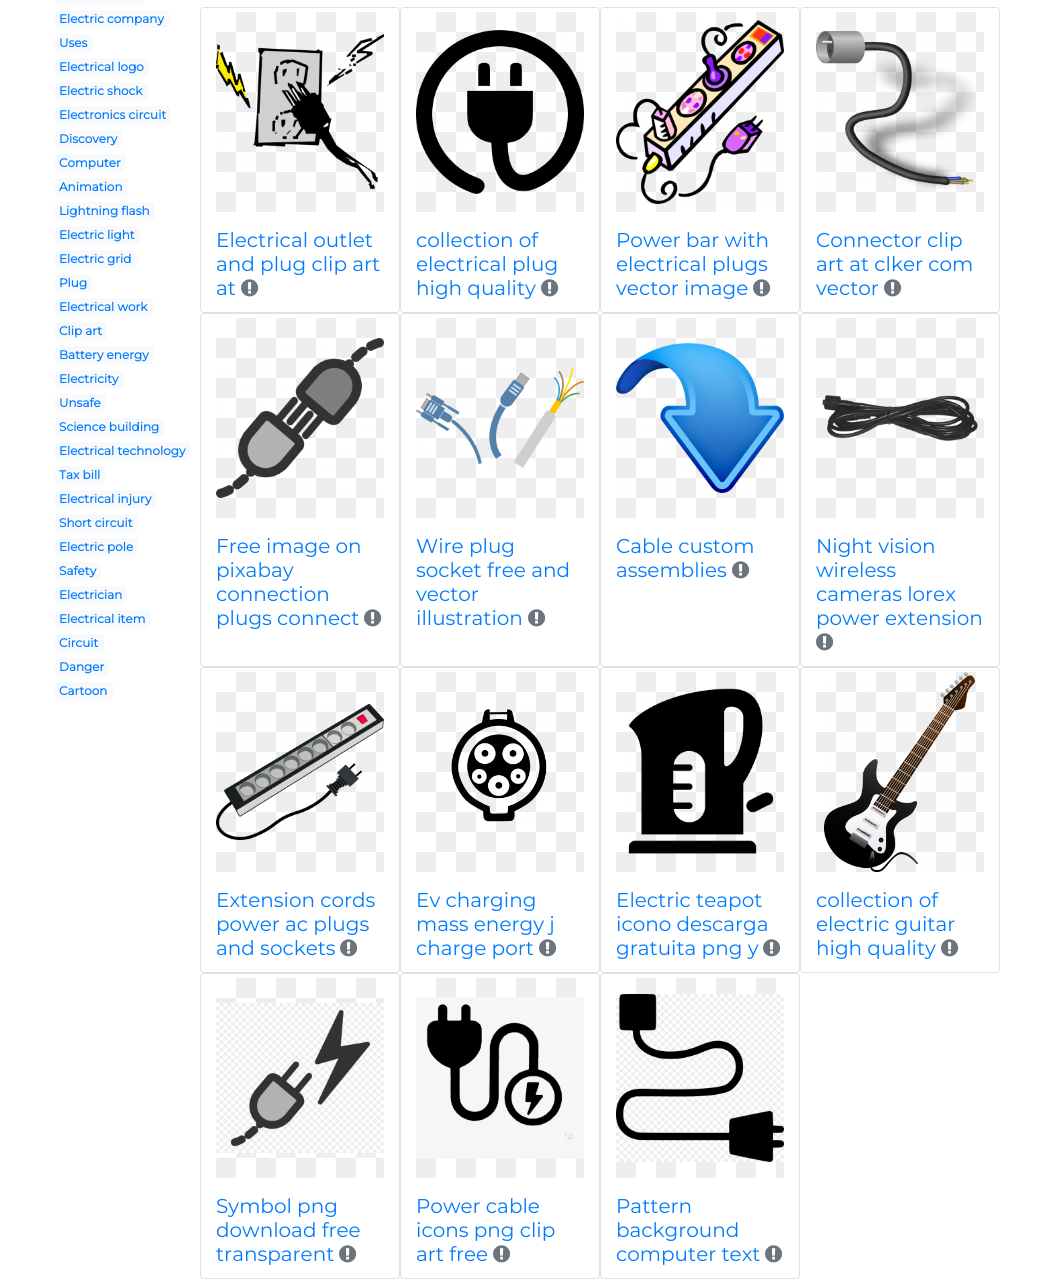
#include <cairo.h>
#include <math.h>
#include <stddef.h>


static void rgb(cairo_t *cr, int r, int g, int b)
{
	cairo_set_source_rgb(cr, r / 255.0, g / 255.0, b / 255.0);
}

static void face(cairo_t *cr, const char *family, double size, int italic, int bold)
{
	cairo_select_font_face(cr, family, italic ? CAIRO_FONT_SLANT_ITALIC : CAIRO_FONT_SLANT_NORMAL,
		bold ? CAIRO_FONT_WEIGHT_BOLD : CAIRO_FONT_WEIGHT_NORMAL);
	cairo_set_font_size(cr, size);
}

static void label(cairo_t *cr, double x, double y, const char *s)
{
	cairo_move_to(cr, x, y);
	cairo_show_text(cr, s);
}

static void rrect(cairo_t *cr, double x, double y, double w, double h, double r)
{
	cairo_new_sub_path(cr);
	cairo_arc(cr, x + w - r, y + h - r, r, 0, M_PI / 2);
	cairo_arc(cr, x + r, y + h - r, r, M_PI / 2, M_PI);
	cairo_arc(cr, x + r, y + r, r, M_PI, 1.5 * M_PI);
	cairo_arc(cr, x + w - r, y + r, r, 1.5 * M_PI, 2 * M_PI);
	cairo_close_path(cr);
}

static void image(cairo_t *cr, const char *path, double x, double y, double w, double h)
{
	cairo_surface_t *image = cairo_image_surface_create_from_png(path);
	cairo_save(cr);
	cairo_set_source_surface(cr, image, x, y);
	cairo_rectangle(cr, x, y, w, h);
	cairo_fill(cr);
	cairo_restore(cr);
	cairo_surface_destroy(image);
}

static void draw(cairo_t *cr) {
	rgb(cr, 255, 255, 255);
	cairo_paint(cr);
	rgb(cr, 248, 249, 250);
	rrect(cr, 55, -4, 89, 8, 4);
	cairo_fill(cr);
	rrect(cr, 55, 10, 114, 18, 4);
	cairo_fill(cr);
	face(cr, "Montserrat", 12, 0, 1);
	rgb(cr, 0, 123, 255);
	label(cr, 59, 23, "Electric company");
	rgb(cr, 248, 249, 250);
	rrect(cr, 55, 34, 38, 18, 4);
	cairo_fill(cr);
	rgb(cr, 0, 123, 255);
	label(cr, 59, 47, "Uses");
	rgb(cr, 248, 249, 250);
	rrect(cr, 55, 58, 94, 18, 4);
	cairo_fill(cr);
	rgb(cr, 0, 123, 255);
	label(cr, 59, 71, "Electrical logo");
	rgb(cr, 248, 249, 250);
	rrect(cr, 55, 82, 93, 18, 4);
	cairo_fill(cr);
	rgb(cr, 0, 123, 255);
	label(cr, 59, 95, "Electric shock");
	rgb(cr, 248, 249, 250);
	rrect(cr, 55, 106, 116, 18, 4);
	cairo_fill(cr);
	rgb(cr, 0, 123, 255);
	label(cr, 59, 119, "Electronics circuit");
	rgb(cr, 248, 249, 250);
	rrect(cr, 55, 130, 67, 18, 4);
	cairo_fill(cr);
	rgb(cr, 0, 123, 255);
	label(cr, 59, 143, "Discovery");
	rgb(cr, 248, 249, 250);
	rrect(cr, 55, 154, 71, 18, 4);
	cairo_fill(cr);
	rgb(cr, 0, 123, 255);
	label(cr, 59, 167, "Computer");
	rgb(cr, 248, 249, 250);
	rrect(cr, 55, 178, 73, 18, 4);
	cairo_fill(cr);
	rgb(cr, 0, 123, 255);
	label(cr, 59, 191, "Animation");
	rgb(cr, 248, 249, 250);
	rrect(cr, 55, 202, 100, 18, 4);
	cairo_fill(cr);
	rgb(cr, 0, 123, 255);
	label(cr, 59, 215, "Lightning flash");
	rgb(cr, 248, 249, 250);
	rrect(cr, 55, 226, 85, 18, 4);
	cairo_fill(cr);
	rgb(cr, 0, 123, 255);
	label(cr, 59, 239, "Electric light");
	rgb(cr, 248, 249, 250);
	rrect(cr, 55, 250, 82, 18, 4);
	cairo_fill(cr);
	rgb(cr, 0, 123, 255);
	label(cr, 59, 263, "Electric grid");
	rgb(cr, 248, 249, 250);
	rrect(cr, 55, 274, 37, 18, 4);
	cairo_fill(cr);
	rgb(cr, 0, 123, 255);
	label(cr, 59, 287, "Plug");
	rgb(cr, 248, 249, 250);
	rrect(cr, 55, 298, 98, 18, 4);
	cairo_fill(cr);
	rgb(cr, 0, 123, 255);
	label(cr, 59, 311, "Electrical work");
	rgb(cr, 248, 249, 250);
	rrect(cr, 55, 322, 52, 18, 4);
	cairo_fill(cr);
	rgb(cr, 0, 123, 255);
	label(cr, 59, 335, "Clip art");
	rgb(cr, 248, 249, 250);
	rrect(cr, 55, 346, 99, 18, 4);
	cairo_fill(cr);
	rgb(cr, 0, 123, 255);
	label(cr, 59, 359, "Battery energy");
	rgb(cr, 248, 249, 250);
	rrect(cr, 55, 370, 69, 18, 4);
	cairo_fill(cr);
	rgb(cr, 0, 123, 255);
	label(cr, 59, 383, "Electricity");
	rgb(cr, 248, 249, 250);
	rrect(cr, 55, 394, 51, 18, 4);
	cairo_fill(cr);
	rgb(cr, 0, 123, 255);
	label(cr, 59, 407, "Unsafe");
	rgb(cr, 248, 249, 250);
	rrect(cr, 55, 418, 109, 18, 4);
	cairo_fill(cr);
	rgb(cr, 0, 123, 255);
	label(cr, 59, 431, "Science building");
	rgb(cr, 248, 249, 250);
	rrect(cr, 55, 442, 136, 18, 4);
	cairo_fill(cr);
	rgb(cr, 0, 123, 255);
	label(cr, 59, 455, "Electrical technology");
	rgb(cr, 248, 249, 250);
	rrect(cr, 55, 466, 50, 18, 4);
	cairo_fill(cr);
	rgb(cr, 0, 123, 255);
	label(cr, 59, 479, "Tax bill");
	rgb(cr, 248, 249, 250);
	rrect(cr, 55, 490, 101, 18, 4);
	cairo_fill(cr);
	rgb(cr, 0, 123, 255);
	label(cr, 59, 503, "Electrical injury");
	rgb(cr, 248, 249, 250);
	rrect(cr, 55, 514, 83, 18, 4);
	cairo_fill(cr);
	rgb(cr, 0, 123, 255);
	label(cr, 59, 527, "Short circuit");
	rgb(cr, 248, 249, 250);
	rrect(cr, 55, 538, 83, 18, 4);
	cairo_fill(cr);
	rgb(cr, 0, 123, 255);
	label(cr, 59, 551, "Electric pole");
	rgb(cr, 248, 249, 250);
	rrect(cr, 55, 562, 46, 18, 4);
	cairo_fill(cr);
	rgb(cr, 0, 123, 255);
	label(cr, 59, 575, "Safety");
	rgb(cr, 248, 249, 250);
	rrect(cr, 55, 586, 72, 18, 4);
	cairo_fill(cr);
	rgb(cr, 0, 123, 255);
	label(cr, 59, 599, "Electrician");
	rgb(cr, 248, 249, 250);
	rrect(cr, 55, 610, 96, 18, 4);
	cairo_fill(cr);
	rgb(cr, 0, 123, 255);
	label(cr, 59, 623, "Electrical item");
	rgb(cr, 248, 249, 250);
	rrect(cr, 55, 634, 49, 18, 4);
	cairo_fill(cr);
	rgb(cr, 0, 123, 255);
	label(cr, 59, 647, "Circuit");
	rgb(cr, 248, 249, 250);
	rrect(cr, 55, 658, 54, 18, 4);
	cairo_fill(cr);
	rgb(cr, 0, 123, 255);
	label(cr, 59, 671, "Danger");
	rgb(cr, 248, 249, 250);
	rrect(cr, 55, 682, 58, 18, 4);
	cairo_fill(cr);
	rgb(cr, 0, 123, 255);
	label(cr, 59, 695, "Cartoon");
	rrect(cr, 200.5, 7.5, 199, 305, 3.5);
	rgb(cr, 222, 226, 230);
	cairo_set_line_width(cr, 1);
	cairo_stroke(cr);
	image(cr, "image0.png", 216, 12, 168, 200);
	image(cr, "image1.png", 216, 34, 168, 156);
	face(cr, "Montserrat Thin", 20, 0, 0);
	rgb(cr, 0, 123, 255);
	label(cr, 216, 247, "Electrical outlet");
	label(cr, 216, 271, "and plug clip art");
	label(cr, 216, 295, "at");
	image(cr, "image2.png", 241, 279, 18, 18);
	rrect(cr, 400.5, 7.5, 199, 305, 3.5);
	rgb(cr, 222, 226, 230);
	cairo_stroke(cr);
	image(cr, "image0.png", 416, 12, 168, 200);
	image(cr, "image3.png", 416, 30, 168, 164);
	rgb(cr, 0, 123, 255);
	label(cr, 416, 247, "collection of");
	label(cr, 416, 271, "electrical plug");
	label(cr, 416, 295, "high quality");
	image(cr, "image2.png", 541, 279, 18, 18);
	rrect(cr, 600.5, 7.5, 199, 305, 3.5);
	rgb(cr, 222, 226, 230);
	cairo_stroke(cr);
	image(cr, "image0.png", 616, 12, 168, 200);
	image(cr, "image4.png", 616, 20, 168, 184);
	rgb(cr, 0, 123, 255);
	label(cr, 616, 247, "Power bar with");
	label(cr, 616, 271, "electrical plugs");
	label(cr, 616, 295, "vector image");
	image(cr, "image2.png", 753, 279, 18, 18);
	rrect(cr, 800.5, 7.5, 199, 305, 3.5);
	rgb(cr, 222, 226, 230);
	cairo_stroke(cr);
	image(cr, "image0.png", 816, 12, 168, 200);
	image(cr, "image5.png", 816, 31, 160, 158);
	rgb(cr, 0, 123, 255);
	label(cr, 816, 247, "Connector clip");
	label(cr, 816, 271, "art at clker com");
	label(cr, 816, 295, "vector");
	image(cr, "image2.png", 884, 279, 18, 18);
	rrect(cr, 200.5, 313.5, 199, 353, 3.5);
	rgb(cr, 222, 226, 230);
	cairo_stroke(cr);
	image(cr, "image0.png", 216, 318, 168, 200);
	image(cr, "image6.png", 216, 338, 168, 160);
	rgb(cr, 0, 123, 255);
	label(cr, 216, 553, "Free image on");
	label(cr, 216, 577, "pixabay");
	label(cr, 216, 601, "connection");
	label(cr, 216, 625, "plugs connect");
	image(cr, "image2.png", 364, 609, 18, 18);
	rrect(cr, 400.5, 313.5, 199, 353, 3.5);
	rgb(cr, 222, 226, 230);
	cairo_stroke(cr);
	image(cr, "image0.png", 416, 318, 168, 200);
	image(cr, "image7.png", 416, 368, 168, 100);
	rgb(cr, 0, 123, 255);
	label(cr, 416, 553, "Wire plug");
	label(cr, 416, 577, "socket free and");
	label(cr, 416, 601, "vector");
	label(cr, 416, 625, "illustration");
	image(cr, "image2.png", 528, 609, 18, 18);
	rrect(cr, 600.5, 313.5, 199, 353, 3.5);
	rgb(cr, 222, 226, 230);
	cairo_stroke(cr);
	image(cr, "image0.png", 616, 318, 168, 200);
	image(cr, "image8.png", 616, 343, 168, 150);
	rgb(cr, 0, 123, 255);
	label(cr, 616, 553, "Cable custom");
	label(cr, 616, 577, "assemblies");
	image(cr, "image2.png", 732, 561, 18, 18);
	rrect(cr, 800.5, 313.5, 199, 353, 3.5);
	rgb(cr, 222, 226, 230);
	cairo_stroke(cr);
	image(cr, "image0.png", 816, 318, 168, 200);
	image(cr, "image9.png", 822, 395, 156, 46);
	rgb(cr, 0, 123, 255);
	label(cr, 816, 553, "Night vision");
	label(cr, 816, 577, "wireless");
	label(cr, 816, 601, "cameras lorex");
	label(cr, 816, 625, "power extension");
	image(cr, "image2.png", 816, 633, 18, 18);
	rrect(cr, 200.5, 667.5, 199, 305, 3.5);
	rgb(cr, 222, 226, 230);
	cairo_stroke(cr);
	image(cr, "image0.png", 216, 672, 168, 200);
	image(cr, "image10.png", 216, 704, 168, 136);
	rgb(cr, 0, 123, 255);
	label(cr, 216, 907, "Extension cords");
	label(cr, 216, 931, "power ac plugs");
	label(cr, 216, 955, "and sockets");
	image(cr, "image2.png", 340, 939, 18, 18);
	rrect(cr, 400.5, 667.5, 199, 305, 3.5);
	rgb(cr, 222, 226, 230);
	cairo_stroke(cr);
	image(cr, "image0.png", 416, 672, 168, 200);
	image(cr, "image11.png", 451, 709, 96, 113);
	rgb(cr, 0, 123, 255);
	label(cr, 416, 907, "Ev charging");
	label(cr, 416, 931, "mass energy j");
	label(cr, 416, 955, "charge port");
	image(cr, "image2.png", 539, 939, 18, 18);
	rrect(cr, 600.5, 667.5, 199, 305, 3.5);
	rgb(cr, 222, 226, 230);
	cairo_stroke(cr);
	image(cr, "image0.png", 616, 672, 168, 200);
	image(cr, "image12.png", 628, 688, 146, 166);
	rgb(cr, 0, 123, 255);
	label(cr, 616, 907, "Electric teapot");
	label(cr, 616, 931, "icono descarga");
	label(cr, 616, 955, "gratuita png y");
	image(cr, "image2.png", 763, 939, 18, 18);
	rrect(cr, 800.5, 667.5, 199, 305, 3.5);
	rgb(cr, 222, 226, 230);
	cairo_stroke(cr);
	image(cr, "image0.png", 816, 672, 168, 200);
	image(cr, "image13.png", 824, 672, 151, 200);
	rgb(cr, 0, 123, 255);
	label(cr, 816, 907, "collection of");
	label(cr, 816, 931, "electric guitar");
	label(cr, 816, 955, "high quality");
	image(cr, "image2.png", 941, 939, 18, 18);
	rrect(cr, 200.5, 973.5, 199, 305, 3.5);
	rgb(cr, 222, 226, 230);
	cairo_stroke(cr);
	image(cr, "image0.png", 216, 978, 168, 200);
	image(cr, "image14.png", 216, 1003, 168, 150);
	rgb(cr, 0, 123, 255);
	label(cr, 216, 1213, "Symbol png");
	label(cr, 216, 1237, "download free");
	label(cr, 216, 1261, "transparent");
	image(cr, "image2.png", 339, 1245, 18, 18);
	rrect(cr, 400.5, 973.5, 199, 305, 3.5);
	rgb(cr, 222, 226, 230);
	cairo_stroke(cr);
	image(cr, "image0.png", 416, 978, 168, 200);
	image(cr, "image15.png", 416, 997, 168, 162);
	rgb(cr, 0, 123, 255);
	label(cr, 416, 1213, "Power cable");
	label(cr, 416, 1237, "icons png clip");
	label(cr, 416, 1261, "art free");
	image(cr, "image2.png", 493, 1245, 18, 18);
	rrect(cr, 600.5, 973.5, 199, 305, 3.5);
	rgb(cr, 222, 226, 230);
	cairo_stroke(cr);
	image(cr, "image0.png", 616, 978, 168, 200);
	image(cr, "image16.png", 616, 994, 168, 168);
	rgb(cr, 0, 123, 255);
	label(cr, 616, 1213, "Pattern");
	label(cr, 616, 1237, "background");
	label(cr, 616, 1261, "computer text");
	image(cr, "image2.png", 765, 1245, 18, 18);
}

int main(void) {
	cairo_surface_t *surface = cairo_image_surface_create(CAIRO_FORMAT_RGB24, 1039, 1288);
	cairo_t *cr = cairo_create(surface);
	cairo_font_options_t *options = cairo_font_options_create();
	cairo_font_options_set_hint_metrics(options, CAIRO_HINT_METRICS_OFF);
	cairo_font_options_set_hint_style(options, CAIRO_HINT_STYLE_NONE);
	cairo_set_font_options(cr, options);
	cairo_set_miter_limit(cr, 4);
	draw(cr);
	cairo_surface_write_to_png(surface, "render.png");
	cairo_font_options_destroy(options);
	cairo_destroy(cr);
	cairo_surface_destroy(surface);
	return 0;
}
